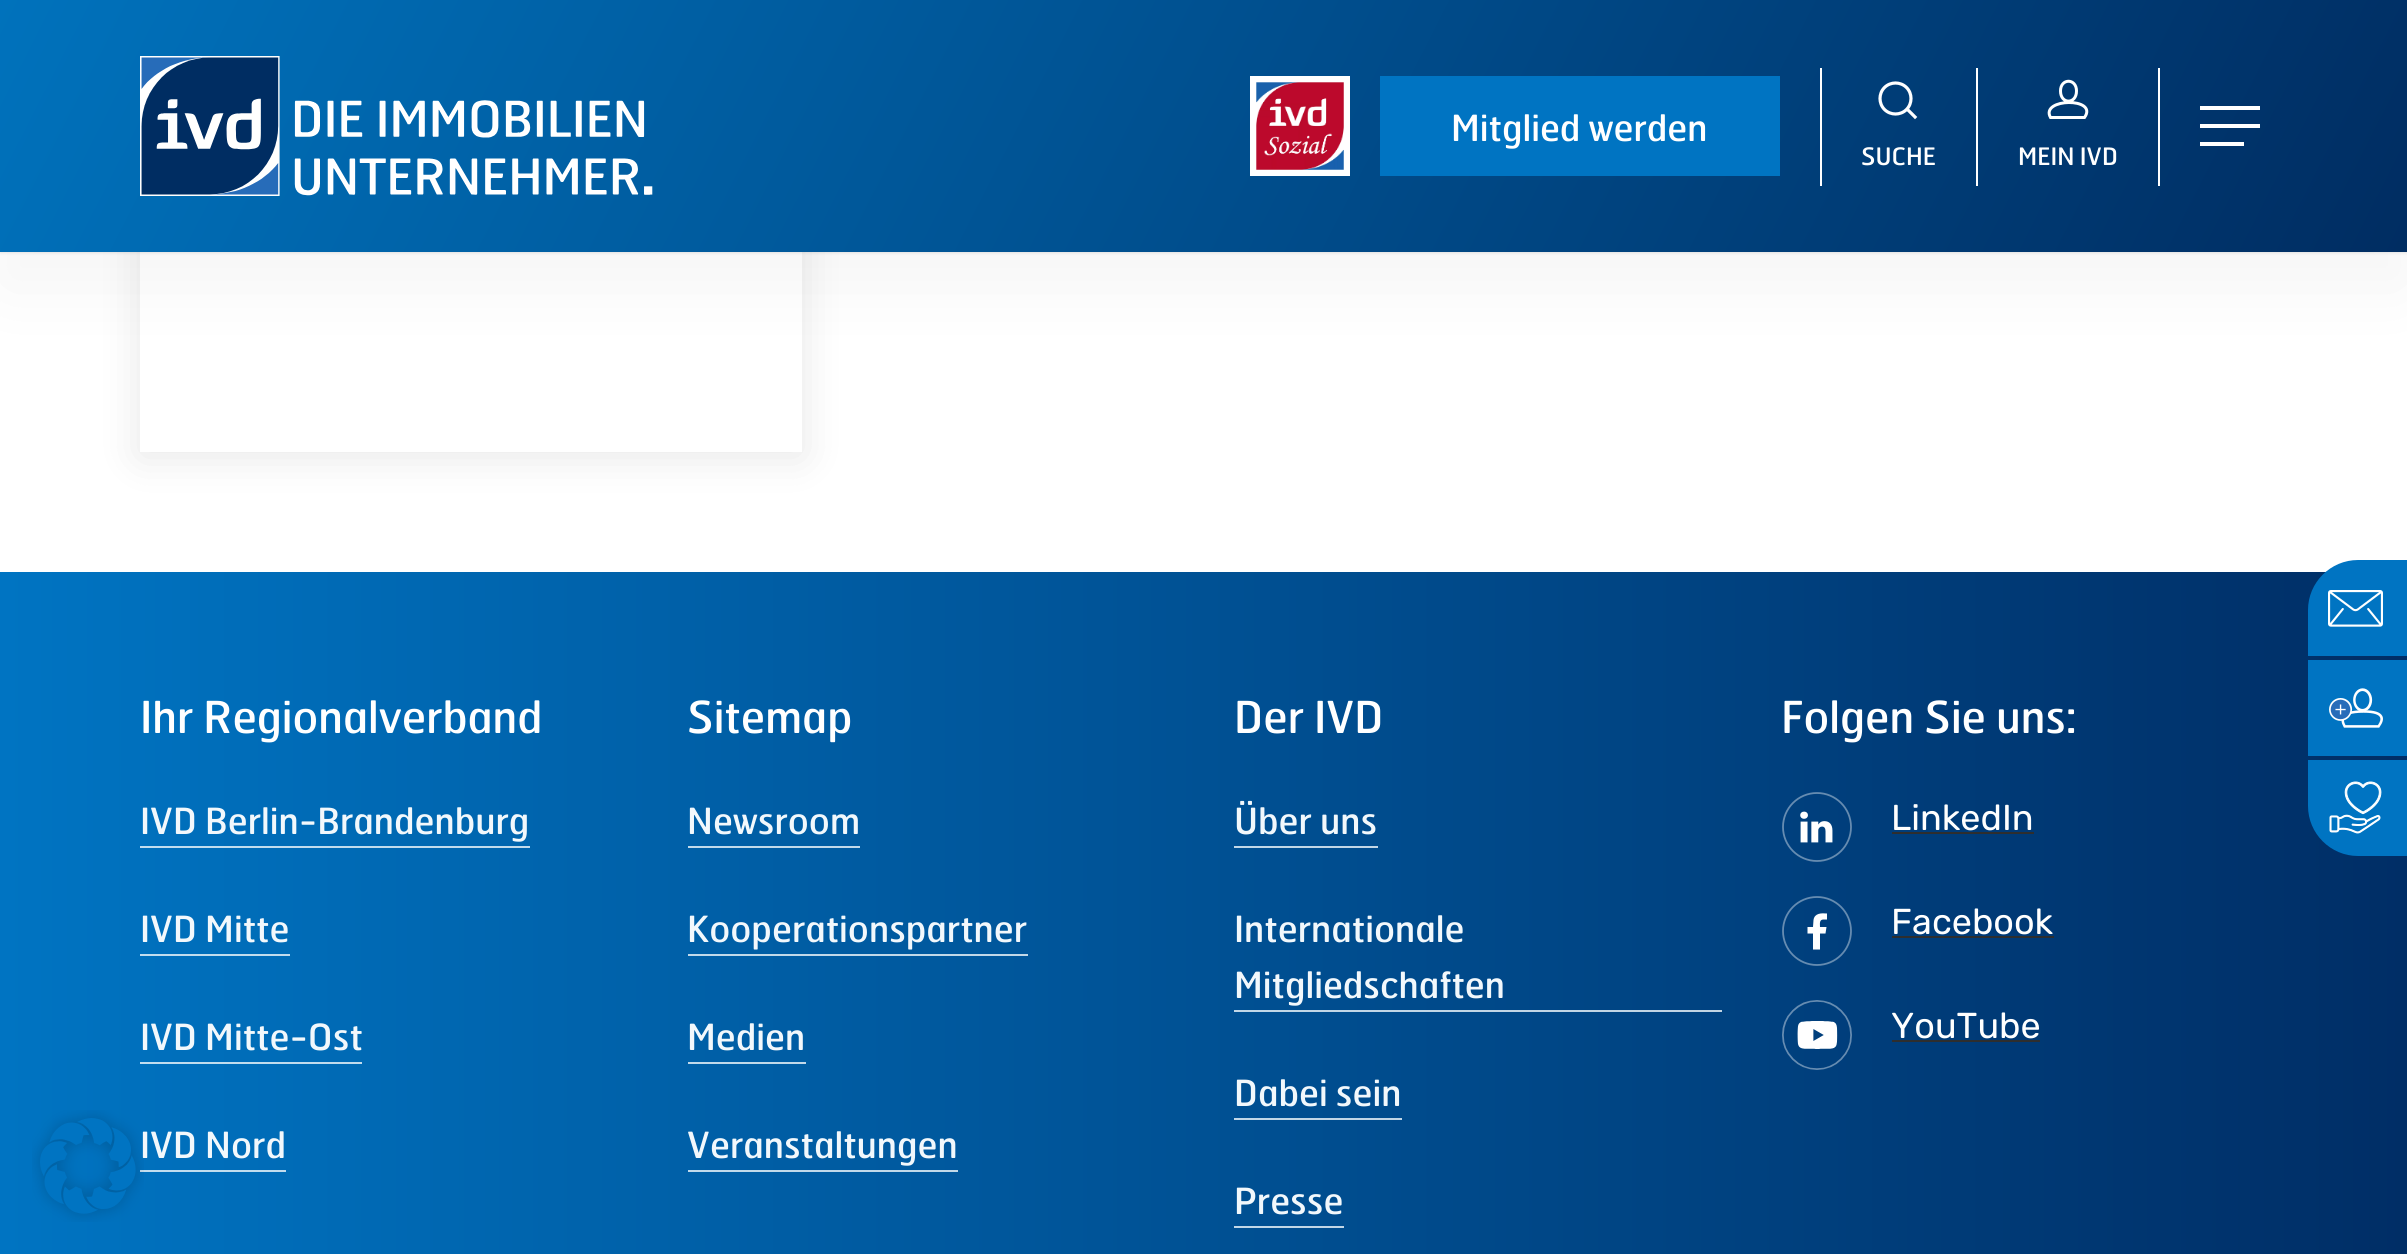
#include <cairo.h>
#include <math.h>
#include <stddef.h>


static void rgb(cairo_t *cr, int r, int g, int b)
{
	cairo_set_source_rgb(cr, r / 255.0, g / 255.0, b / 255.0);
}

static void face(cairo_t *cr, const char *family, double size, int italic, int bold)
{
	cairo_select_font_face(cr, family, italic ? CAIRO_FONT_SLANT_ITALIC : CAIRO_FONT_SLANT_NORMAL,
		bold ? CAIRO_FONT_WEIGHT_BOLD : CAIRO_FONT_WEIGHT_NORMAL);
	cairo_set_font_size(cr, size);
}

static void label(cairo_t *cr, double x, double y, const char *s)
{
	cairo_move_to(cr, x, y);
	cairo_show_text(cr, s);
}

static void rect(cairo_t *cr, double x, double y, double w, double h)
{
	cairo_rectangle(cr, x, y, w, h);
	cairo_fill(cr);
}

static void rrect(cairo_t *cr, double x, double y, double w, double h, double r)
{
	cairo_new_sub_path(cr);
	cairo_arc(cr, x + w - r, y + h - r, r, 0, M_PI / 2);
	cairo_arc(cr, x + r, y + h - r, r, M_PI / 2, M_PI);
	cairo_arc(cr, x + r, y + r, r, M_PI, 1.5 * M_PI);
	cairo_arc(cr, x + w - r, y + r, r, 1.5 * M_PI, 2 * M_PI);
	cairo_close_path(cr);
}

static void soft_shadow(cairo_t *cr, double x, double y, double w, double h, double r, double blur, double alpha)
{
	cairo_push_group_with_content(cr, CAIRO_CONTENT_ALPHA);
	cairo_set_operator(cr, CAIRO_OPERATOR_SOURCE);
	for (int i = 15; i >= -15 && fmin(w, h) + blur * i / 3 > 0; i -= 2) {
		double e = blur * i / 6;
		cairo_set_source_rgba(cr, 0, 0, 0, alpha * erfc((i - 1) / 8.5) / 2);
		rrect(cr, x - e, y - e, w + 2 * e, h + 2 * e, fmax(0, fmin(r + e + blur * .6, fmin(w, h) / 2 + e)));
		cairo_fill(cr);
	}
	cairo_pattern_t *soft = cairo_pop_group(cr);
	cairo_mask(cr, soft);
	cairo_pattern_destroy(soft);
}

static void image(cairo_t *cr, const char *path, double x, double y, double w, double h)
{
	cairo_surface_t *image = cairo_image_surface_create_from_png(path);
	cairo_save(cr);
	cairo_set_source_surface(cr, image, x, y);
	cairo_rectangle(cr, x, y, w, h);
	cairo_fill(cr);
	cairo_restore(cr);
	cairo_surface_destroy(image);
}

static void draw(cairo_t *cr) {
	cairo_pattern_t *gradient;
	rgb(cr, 255, 255, 255);
	cairo_paint(cr);
	rgb(cr, 0, 0, 0);
	soft_shadow(cr, 0, -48, 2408, 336, 0, 40, 0.04);
	soft_shadow(cr, 0, -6, 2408, 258, 0, 2, 0.14);
	cairo_save(cr);
	cairo_set_fill_rule(cr, CAIRO_FILL_RULE_EVEN_ODD);
	cairo_new_path(cr);
	cairo_move_to(cr, 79, 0);
	cairo_line_to(cr, 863, 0);
	cairo_line_to(cr, 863, 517);
	cairo_line_to(cr, 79, 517);
	cairo_close_path(cr);
	cairo_move_to(cr, 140, -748);
	cairo_line_to(cr, 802, -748);
	cairo_line_to(cr, 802, 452);
	cairo_line_to(cr, 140, 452);
	cairo_close_path(cr);
	cairo_clip(cr);
	soft_shadow(cr, 140, -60, 662, 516, 0, 20, 0.1);
	cairo_restore(cr);
	gradient = cairo_pattern_create_linear(197, -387, 2211, 639);
	cairo_pattern_add_color_stop_rgba(gradient, 0, 0, 0.447, 0.737, 1);
	cairo_pattern_add_color_stop_rgba(gradient, 1, 0, 0.176, 0.384, 1);
	cairo_set_source(cr, gradient);
	cairo_pattern_destroy(gradient);
	rect(cr, 0, 0, 2407, 252);
	image(cr, "image0.png", 140, 56, 513, 140);
	image(cr, "image1.png", 1250, 76, 100, 100);
	rgb(cr, 0, 116, 194);
	rect(cr, 1380, 76, 400, 100);
	face(cr, "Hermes", 36, 0, 0);
	rgb(cr, 255, 255, 255);
	label(cr, 1451, 141, "Mitglied werden");
	rect(cr, 2200, 106, 60, 4);
	rect(cr, 2200, 142, 44, 4);
	rect(cr, 2200, 124, 60, 4);
	rect(cr, 1976, 68, 2, 118);
	rect(cr, 1820, 68, 2, 118);
	cairo_new_path(cr);
	cairo_move_to(cr, 1884.5, 87.5);
	cairo_curve_to(cr, 1890.5, 81.5, 1900.5, 81.5, 1906.5, 87.5);
	cairo_curve_to(cr, 1912.5, 93.5, 1912.5, 103.5, 1906.5, 109.5);
	cairo_curve_to(cr, 1900.5, 115.5, 1890.5, 115.5, 1884.5, 109.5);
	cairo_curve_to(cr, 1878.5, 103.5, 1878.5, 93.5, 1884.5, 87.5);
	cairo_close_path(cr);
	cairo_set_line_width(cr, 3.2);
	cairo_stroke(cr);
	cairo_new_path(cr);
	cairo_move_to(cr, 1908.5, 110.5);
	cairo_line_to(cr, 1915, 117);
	cairo_set_line_cap(cr, CAIRO_LINE_CAP_SQUARE);
	cairo_stroke(cr);
	face(cr, "Hermes", 24, 0, 0);
	label(cr, 1861, 165, "SUCHE");
	rect(cr, 2158, 68, 2, 118);
	cairo_new_path(cr);
	cairo_move_to(cr, 2050.5, 117.5);
	cairo_line_to(cr, 2084.5, 117.5);
	cairo_curve_to(cr, 2099, 97, 2039.5, 98, 2050.5, 117.5);
	cairo_close_path(cr);
	cairo_move_to(cr, 2076.5, 91);
	cairo_curve_to(cr, 2076.5, 104.5, 2060.5, 104.5, 2060.5, 91);
	cairo_curve_to(cr, 2060.5, 78, 2076.5, 78, 2076.5, 91);
	cairo_close_path(cr);
	cairo_set_line_width(cr, 3);
	cairo_set_line_cap(cr, CAIRO_LINE_CAP_BUTT);
	cairo_stroke(cr);
	label(cr, 2018, 165, "MEIN IVD");
	gradient = cairo_pattern_create_linear(0, 1035, 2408, 1035);
	cairo_pattern_add_color_stop_rgba(gradient, 0, 0, 0.455, 0.761, 1);
	cairo_pattern_add_color_stop_rgba(gradient, 1, 0, 0.18, 0.4, 1);
	cairo_set_source(cr, gradient);
	cairo_pattern_destroy(gradient);
	rect(cr, 0, 572, 2407, 682);
	gradient = cairo_pattern_create_linear(0, 1035, 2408, 1035);
	cairo_pattern_add_color_stop_rgba(gradient, 0, 0.761, 0.871, 0.941, 1);
	cairo_pattern_add_color_stop_rgba(gradient, 1, 0.761, 0.816, 0.871, 1);
	cairo_set_source(cr, gradient);
	cairo_pattern_destroy(gradient);
	rect(cr, 140, 1170, 146, 2);
	face(cr, "Hermes", 36, 0, 0);
	rgb(cr, 242, 248, 252);
	label(cr, 140, 1158, "IVD Nord");
	image(cr, "image2.png", 32, 1110, 112, 112);
	gradient = cairo_pattern_create_linear(0, 1035, 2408, 1035);
	cairo_pattern_add_color_stop_rgba(gradient, 0, 0.761, 0.871, 0.941, 1);
	cairo_pattern_add_color_stop_rgba(gradient, 1, 0.761, 0.816, 0.871, 1);
	cairo_set_source(cr, gradient);
	cairo_pattern_destroy(gradient);
	rect(cr, 1234, 1226, 110, 2);
	rect(cr, 1234, 1118, 168, 2);
	rect(cr, 1234, 1010, 488, 2);
	rect(cr, 1234, 846, 144, 2);
	rect(cr, 688, 1170, 270, 2);
	rect(cr, 688, 1062, 118, 2);
	rect(cr, 688, 954, 340, 2);
	rect(cr, 688, 846, 172, 2);
	rect(cr, 140, 1062, 222, 2);
	rect(cr, 140, 954, 150, 2);
	rect(cr, 140, 846, 390, 2);
	face(cr, "Hermes", 44, 0, 0);
	rgb(cr, 255, 255, 255);
	label(cr, 140, 733, "Ihr Regionalverband");
	face(cr, "Hermes", 36, 0, 0);
	rgb(cr, 242, 248, 252);
	label(cr, 140, 834, "IVD Berlin-Brandenburg");
	label(cr, 140, 942, "IVD Mitte");
	label(cr, 140, 1050, "IVD Mitte-Ost");
	face(cr, "Hermes", 44, 0, 0);
	rgb(cr, 255, 255, 255);
	label(cr, 687, 733, "Sitemap");
	face(cr, "Hermes", 36, 0, 0);
	rgb(cr, 242, 248, 252);
	label(cr, 687, 834, "Newsroom");
	label(cr, 687, 942, "Kooperationspartner");
	label(cr, 687, 1050, "Medien");
	label(cr, 687, 1158, "Veranstaltungen");
	face(cr, "Hermes", 44, 0, 0);
	rgb(cr, 255, 255, 255);
	label(cr, 1234, 733, "Der IVD");
	face(cr, "Hermes", 36, 0, 0);
	rgb(cr, 242, 248, 252);
	label(cr, 1234, 834, "Über uns");
	label(cr, 1234, 942, "Internationale");
	label(cr, 1234, 998, "Mitgliedschaften");
	label(cr, 1234, 1106, "Dabei sein");
	label(cr, 1234, 1214, "Presse");
	face(cr, "Hermes", 44, 0, 0);
	rgb(cr, 255, 255, 255);
	label(cr, 1781, 733, "Folgen Sie uns:");
	image(cr, "image3.png", 1782, 792, 70, 70);
	face(cr, "Rubik", 36, 0, 0);
	label(cr, 1891, 830, "LinkedIn");
	rgb(cr, 46, 46, 46);
	rect(cr, 1892, 832, 142, 2);
	rgb(cr, 255, 255, 255);
	cairo_new_path(cr);
	cairo_move_to(cr, 1823.5, 919.5);
	cairo_line_to(cr, 1827, 919.5);
	cairo_line_to(cr, 1827, 913.5);
	cairo_curve_to(cr, 1821.5, 913, 1814.5, 913, 1813.5, 920);
	cairo_line_to(cr, 1813, 927);
	cairo_line_to(cr, 1807.5, 927);
	cairo_line_to(cr, 1807.5, 933.5);
	cairo_line_to(cr, 1813, 933.5);
	cairo_line_to(cr, 1813, 949.5);
	cairo_line_to(cr, 1820, 949.5);
	cairo_line_to(cr, 1820, 933.5);
	cairo_line_to(cr, 1825.5, 933.5);
	cairo_line_to(cr, 1826.5, 927);
	cairo_line_to(cr, 1820, 927);
	cairo_curve_to(cr, 1820, 924, 1819, 919.5, 1823.5, 919.5);
	cairo_close_path(cr);
	cairo_fill(cr);
	cairo_arc(cr, 1817, 931, 34, 0, 2 * M_PI);
	cairo_set_source_rgba(cr, 1, 1, 1, 0.4);
	cairo_set_line_width(cr, 1.8);
	cairo_stroke(cr);
	rgb(cr, 255, 255, 255);
	label(cr, 1891, 934, "Facebook");
	rgb(cr, 46, 46, 46);
	rect(cr, 1892, 936, 162, 2);
	image(cr, "image4.png", 1782, 1000, 70, 70);
	rgb(cr, 255, 255, 255);
	label(cr, 1891, 1038, "YouTube");
	rgb(cr, 46, 46, 46);
	rect(cr, 1892, 1040, 148, 2);
	rgb(cr, 0, 116, 194);
	cairo_new_path(cr);
	cairo_move_to(cr, 2358, 560);
	cairo_line_to(cr, 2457, 560);
	cairo_line_to(cr, 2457, 656);
	cairo_line_to(cr, 2308, 656);
	cairo_line_to(cr, 2308, 610);
	cairo_curve_to(cr, 2308, 582.5, 2330.5, 560, 2358, 560);
	cairo_close_path(cr);
	cairo_fill(cr);
	image(cr, "image5.png", 2328, 590, 55, 37);
	rect(cr, 2308, 660, 99, 96);
	image(cr, "image6.png", 2329, 688, 54, 40);
	cairo_new_path(cr);
	cairo_move_to(cr, 2308, 760);
	cairo_line_to(cr, 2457, 760);
	cairo_line_to(cr, 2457, 856);
	cairo_line_to(cr, 2358, 856);
	cairo_curve_to(cr, 2330.5, 856, 2308, 833.5, 2308, 806);
	cairo_close_path(cr);
	cairo_fill(cr);
	image(cr, "image7.png", 2329, 781, 53, 53);
}

int main(void) {
	cairo_surface_t *surface = cairo_image_surface_create(CAIRO_FORMAT_RGB24, 2407, 1254);
	cairo_t *cr = cairo_create(surface);
	cairo_font_options_t *options = cairo_font_options_create();
	cairo_font_options_set_hint_metrics(options, CAIRO_HINT_METRICS_OFF);
	cairo_font_options_set_hint_style(options, CAIRO_HINT_STYLE_NONE);
	cairo_set_font_options(cr, options);
	cairo_set_miter_limit(cr, 4);
	draw(cr);
	cairo_surface_write_to_png(surface, "render.png");
	cairo_font_options_destroy(options);
	cairo_destroy(cr);
	cairo_surface_destroy(surface);
	return 0;
}
